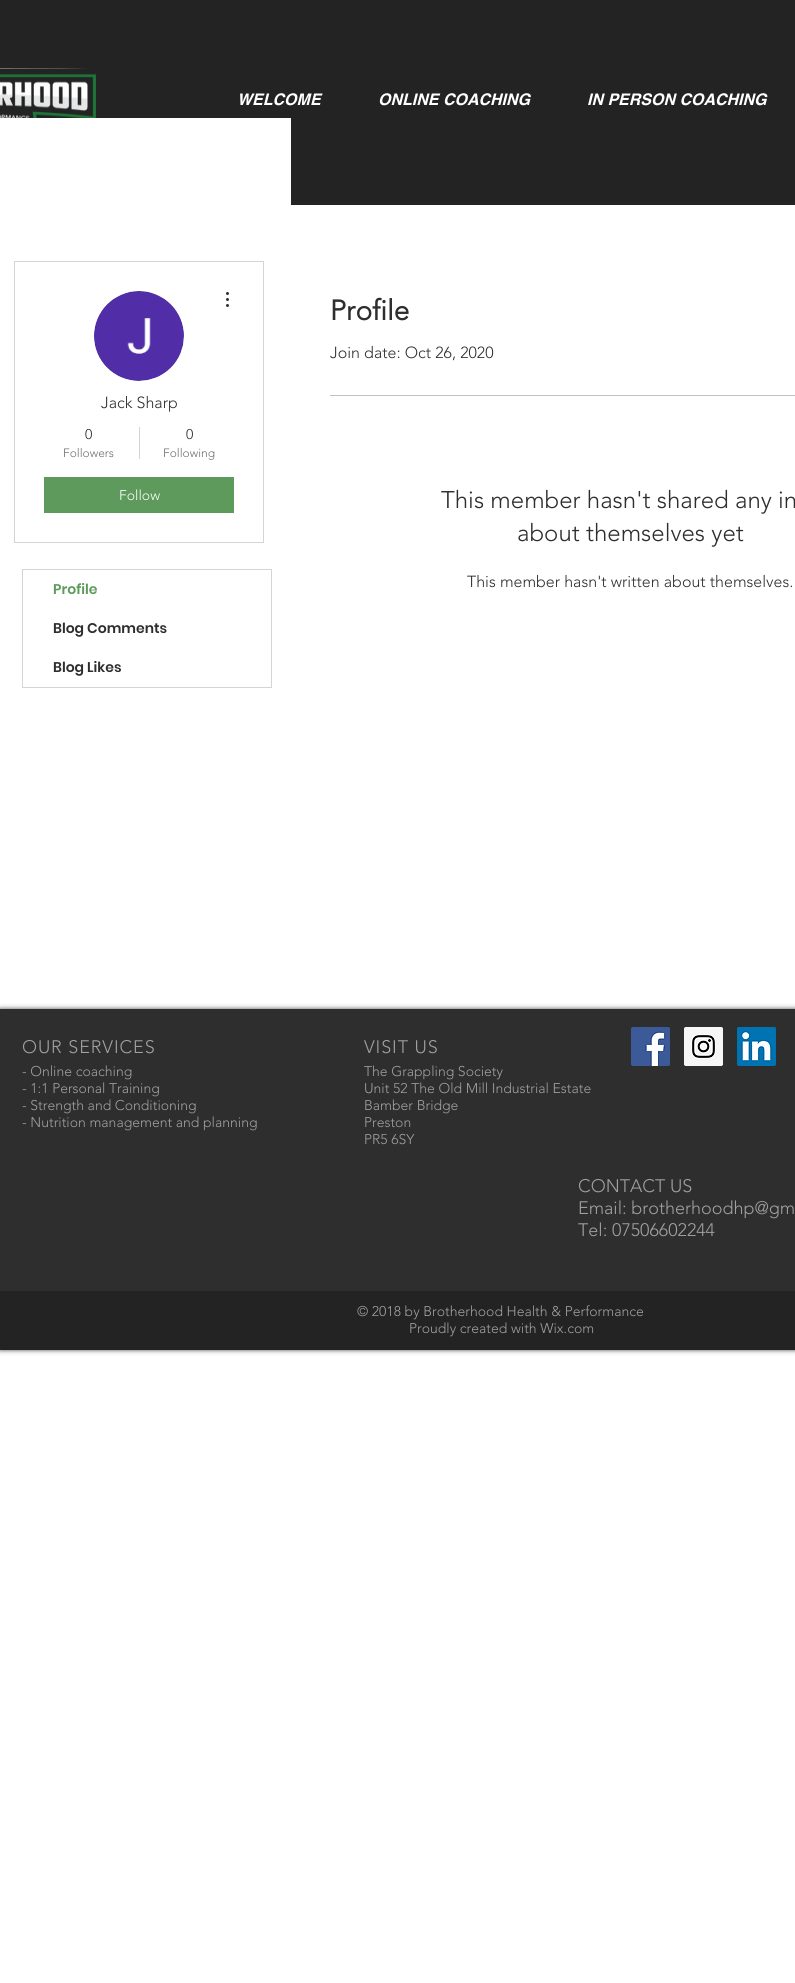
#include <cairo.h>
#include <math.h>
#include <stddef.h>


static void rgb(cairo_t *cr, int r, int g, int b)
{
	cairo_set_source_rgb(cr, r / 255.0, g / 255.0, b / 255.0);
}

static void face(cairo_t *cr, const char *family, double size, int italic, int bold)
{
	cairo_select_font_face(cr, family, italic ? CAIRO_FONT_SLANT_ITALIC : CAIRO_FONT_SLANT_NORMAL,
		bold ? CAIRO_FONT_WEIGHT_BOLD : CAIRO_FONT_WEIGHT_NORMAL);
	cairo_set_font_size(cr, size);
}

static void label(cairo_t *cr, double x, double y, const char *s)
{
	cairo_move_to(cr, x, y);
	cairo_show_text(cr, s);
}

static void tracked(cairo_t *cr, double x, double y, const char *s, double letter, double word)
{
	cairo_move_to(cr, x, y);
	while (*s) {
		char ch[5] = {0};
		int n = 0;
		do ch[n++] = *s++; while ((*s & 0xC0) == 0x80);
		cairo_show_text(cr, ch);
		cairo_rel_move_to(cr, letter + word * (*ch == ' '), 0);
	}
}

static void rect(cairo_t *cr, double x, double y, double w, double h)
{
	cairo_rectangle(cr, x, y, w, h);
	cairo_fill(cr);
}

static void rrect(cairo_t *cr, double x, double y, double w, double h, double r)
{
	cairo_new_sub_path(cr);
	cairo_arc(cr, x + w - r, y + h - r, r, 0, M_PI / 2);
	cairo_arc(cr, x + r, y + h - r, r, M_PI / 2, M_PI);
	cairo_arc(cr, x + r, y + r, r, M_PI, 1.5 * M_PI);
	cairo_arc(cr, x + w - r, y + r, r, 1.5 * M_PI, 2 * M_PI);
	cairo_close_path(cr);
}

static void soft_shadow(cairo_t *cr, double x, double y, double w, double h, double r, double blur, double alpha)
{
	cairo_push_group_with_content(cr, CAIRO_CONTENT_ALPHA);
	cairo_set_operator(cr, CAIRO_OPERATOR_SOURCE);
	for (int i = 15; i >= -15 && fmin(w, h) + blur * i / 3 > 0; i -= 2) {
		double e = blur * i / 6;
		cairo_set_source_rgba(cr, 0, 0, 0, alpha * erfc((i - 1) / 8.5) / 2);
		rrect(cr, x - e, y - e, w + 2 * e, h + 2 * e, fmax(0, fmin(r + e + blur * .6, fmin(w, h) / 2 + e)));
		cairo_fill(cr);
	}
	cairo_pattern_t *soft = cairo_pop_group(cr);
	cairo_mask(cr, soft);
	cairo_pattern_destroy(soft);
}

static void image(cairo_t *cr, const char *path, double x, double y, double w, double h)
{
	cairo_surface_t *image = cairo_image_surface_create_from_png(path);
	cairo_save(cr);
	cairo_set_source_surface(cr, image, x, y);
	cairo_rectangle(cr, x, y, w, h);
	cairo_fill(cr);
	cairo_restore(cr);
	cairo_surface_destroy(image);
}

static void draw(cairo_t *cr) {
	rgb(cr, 255, 255, 255);
	cairo_paint(cr);
	rgb(cr, 36, 35, 35);
	rect(cr, 0, 0, 795, 205);
	image(cr, "image0.png", 0, 68, 96, 50);
	face(cr, "helvetica", 16, 1, 1);
	rgb(cr, 255, 255, 255);
	label(cr, 237, 105, "WELCOME");
	label(cr, 378, 105, "ONLINE COACHING");
	label(cr, 587, 105, "IN PERSON COACHING");
	rect(cr, 0, 118, 291, 87);
	cairo_rectangle(cr, 14.5, 261.5, 249, 281);
	rgb(cr, 213, 213, 213);
	cairo_set_line_width(cr, 1);
	cairo_stroke(cr);
	rgb(cr, 216, 216, 216);
	cairo_arc(cr, 139, 336, 45, 0, 2 * M_PI);
	cairo_fill(cr);
	image(cr, "image1.png", 94, 291, 90, 90);
	image(cr, "image2.png", 226, 292, 3, 15);
	face(cr, "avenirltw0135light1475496 Light", 16, 0, 0);
	rgb(cr, 47, 46, 46);
	label(cr, 101, 408, "Jack Sharp");
	face(cr, "avenirltw0135light1475496 Light", 14, 0, 0);
	label(cr, 85, 439, "0");
	face(cr, "avenirltw0135light1475496 Light", 12, 0, 0);
	rgb(cr, 109, 109, 109);
	label(cr, 63, 457, "Followers");
	rgb(cr, 213, 213, 213);
	rect(cr, 139, 427, 1, 32);
	face(cr, "avenirltw0135light1475496 Light", 14, 0, 0);
	rgb(cr, 47, 46, 46);
	label(cr, 186, 439, "0");
	face(cr, "avenirltw0135light1475496 Light", 12, 0, 0);
	rgb(cr, 109, 109, 109);
	label(cr, 163, 457, "Following");
	rgb(cr, 94, 154, 92);
	rect(cr, 44, 477, 190, 36);
	face(cr, "avenirltw0135light1475496 Light", 14, 0, 0);
	rgb(cr, 255, 255, 255);
	label(cr, 119, 500, "Follow");
	cairo_rectangle(cr, 22.5, 569.5, 249, 118);
	rgb(cr, 213, 213, 213);
	cairo_stroke(cr);
	face(cr, "Poppins SemiBold", 14, 0, 0);
	rgb(cr, 94, 154, 92);
	label(cr, 53, 594, "Profile");
	rgb(cr, 47, 46, 46);
	label(cr, 53, 633, "Blog Comments");
	label(cr, 53, 672, "Blog Likes");
	face(cr, "avenirltw0135light1475496", 28, 0, 1);
	label(cr, 330, 320, "Profile");
	face(cr, "avenirltw0135light1475496 Light", 16, 0, 0);
	label(cr, 330, 358, "Join date: Oct 26, 2020");
	rgb(cr, 193, 192, 192);
	rect(cr, 330, 395, 465, 1);
	face(cr, "avenirltw0135light1475496 Light", 24, 0, 0);
	rgb(cr, 47, 46, 46);
	label(cr, 441, 508, "This member hasn't shared any in");
	label(cr, 517, 541, "about themselves yet");
	face(cr, "avenirltw0135light1475496 Light", 16, 0, 0);
	label(cr, 467, 587, "This member hasn't written about themselves.");
	rgb(cr, 0, 0, 0);
	soft_shadow(cr, 0, 1009, 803, 341, 0, 2.5, 0.7);
	rgb(cr, 47, 46, 46);
	rect(cr, 0, 1009, 795, 282);
	face(cr, "avenirltw0135light1475496 Light", 18, 0, 0);
	rgb(cr, 160, 160, 159);
	tracked(cr, 22, 1053, "OUR SERVICES", 0.9, 0);
	tracked(cr, 364, 1053, "VISIT US", 0.9, 0);
	image(cr, "image3.png", 631, 1027, 39, 39);
	image(cr, "image4.png", 684, 1027, 39, 39);
	image(cr, "image5.png", 737, 1027, 39, 39);
	face(cr, "avenirltw0135light1475496 Light", 14, 0, 0);
	label(cr, 22, 1076, "- Online coaching");
	label(cr, 22, 1093, "- 1:1 Personal Training");
	label(cr, 22, 1110, "- Strength and Conditioning");
	label(cr, 22, 1127, "- Nutrition management and planning");
	label(cr, 364, 1076, "The Grappling Society");
	label(cr, 364, 1093, "Unit 52 The Old Mill Industrial Estate");
	label(cr, 364, 1110, "Bamber Bridge");
	label(cr, 364, 1127, "Preston");
	label(cr, 364, 1144, "PR5 6SY");
	face(cr, "avenirltw0135light1475496 Light", 18, 0, 0);
	label(cr, 578, 1192, "CONTACT US");
	label(cr, 578, 1214, "Email: brotherhoodhp@gm");
	label(cr, 578, 1236, "Tel: 07506602244");
	rgb(cr, 36, 35, 35);
	rect(cr, 0, 1291, 795, 59);
	face(cr, "avenirltw0135light1475496 Light", 14, 0, 0);
	rgb(cr, 160, 160, 159);
	label(cr, 357, 1316, "© 2018 by Brotherhood Health & Performance");
	label(cr, 409, 1333, "Proudly created with Wix.com");
}

int main(void) {
	cairo_surface_t *surface = cairo_image_surface_create(CAIRO_FORMAT_RGB24, 795, 1983);
	cairo_t *cr = cairo_create(surface);
	cairo_font_options_t *options = cairo_font_options_create();
	cairo_font_options_set_hint_metrics(options, CAIRO_HINT_METRICS_OFF);
	cairo_font_options_set_hint_style(options, CAIRO_HINT_STYLE_NONE);
	cairo_set_font_options(cr, options);
	cairo_set_miter_limit(cr, 4);
	draw(cr);
	cairo_surface_write_to_png(surface, "render.png");
	cairo_font_options_destroy(options);
	cairo_destroy(cr);
	cairo_surface_destroy(surface);
	return 0;
}
